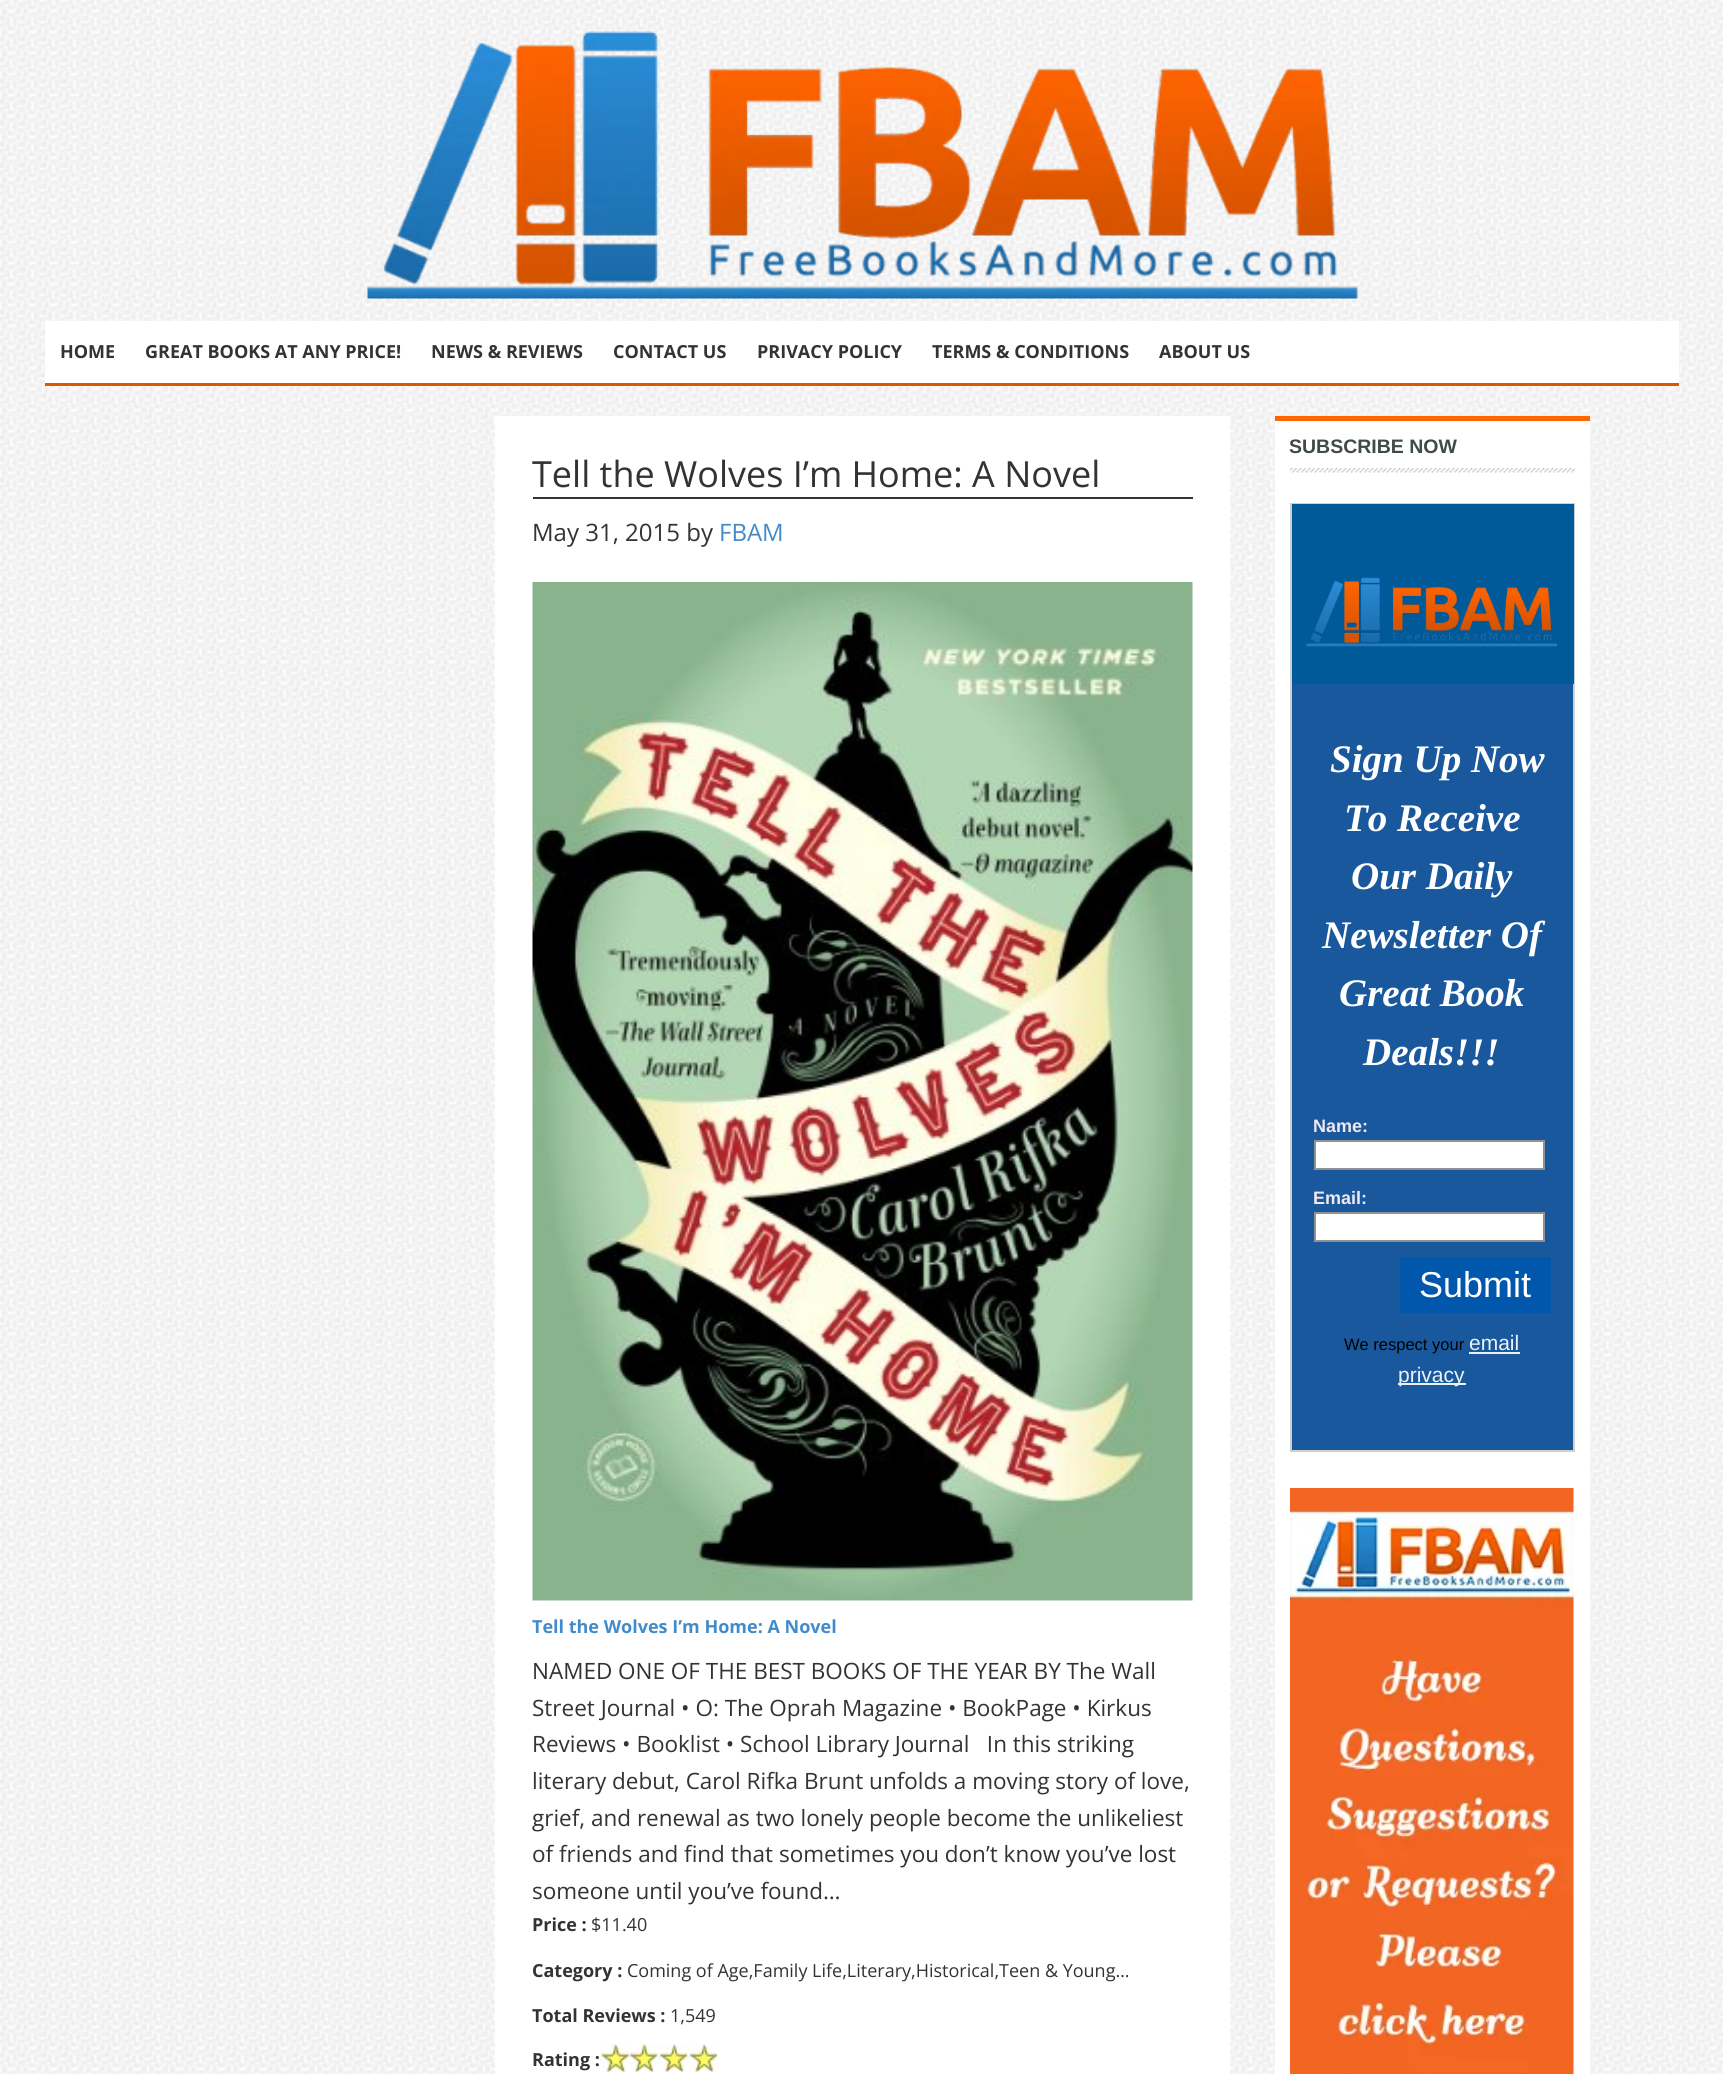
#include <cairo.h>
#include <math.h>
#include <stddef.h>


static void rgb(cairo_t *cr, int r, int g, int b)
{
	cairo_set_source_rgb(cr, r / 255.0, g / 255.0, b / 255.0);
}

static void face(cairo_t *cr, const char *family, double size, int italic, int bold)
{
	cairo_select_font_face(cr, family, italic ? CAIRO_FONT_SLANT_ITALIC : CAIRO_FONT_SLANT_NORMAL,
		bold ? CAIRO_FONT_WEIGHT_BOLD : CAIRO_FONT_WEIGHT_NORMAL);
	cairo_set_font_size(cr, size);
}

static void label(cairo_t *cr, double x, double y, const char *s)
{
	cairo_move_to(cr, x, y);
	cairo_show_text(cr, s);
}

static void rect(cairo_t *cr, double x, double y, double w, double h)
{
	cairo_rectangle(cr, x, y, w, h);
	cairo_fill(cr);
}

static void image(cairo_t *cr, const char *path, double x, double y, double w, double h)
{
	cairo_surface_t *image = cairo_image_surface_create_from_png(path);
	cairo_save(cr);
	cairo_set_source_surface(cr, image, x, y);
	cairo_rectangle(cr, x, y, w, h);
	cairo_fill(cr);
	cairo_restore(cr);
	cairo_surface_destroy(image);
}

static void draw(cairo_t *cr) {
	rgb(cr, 255, 255, 255);
	cairo_paint(cr);
	image(cr, "image0.png", 0, 0, 1723, 2074);
	image(cr, "image1.png", 367, 31, 991, 268);
	rgb(cr, 255, 255, 255);
	rect(cr, 45, 321, 1634, 62);
	rgb(cr, 222, 86, 0);
	rect(cr, 45, 383, 1634, 3);
	face(cr, "Open Sans", 18, 0, 1);
	rgb(cr, 51, 51, 51);
	label(cr, 60, 358, "HOME");
	label(cr, 145, 358, "GREAT BOOKS AT ANY PRICE!");
	label(cr, 431, 358, "NEWS & REVIEWS");
	label(cr, 613, 358, "CONTACT US");
	label(cr, 757, 358, "PRIVACY POLICY");
	label(cr, 932, 358, "TERMS & CONDITIONS");
	label(cr, 1159, 358, "ABOUT US");
	rgb(cr, 255, 255, 255);
	rect(cr, 495, 416, 735, 1658);
	rgb(cr, 51, 51, 51);
	rect(cr, 533, 497, 660, 2);
	face(cr, "Open Sans", 36, 0, 0);
	label(cr, 532, 487, "Tell the Wolves I’m Home: A Novel");
	face(cr, "Open Sans", 24, 0, 0);
	label(cr, 532, 541, "May 31, 2015 by");
	rgb(cr, 66, 139, 202);
	label(cr, 719, 541, "FBAM");
	image(cr, "image2.png", 532, 582, 661, 1019);
	face(cr, "Open Sans", 18, 0, 1);
	label(cr, 532, 1633, "Tell the Wolves I’m Home: A Novel");
	face(cr, "Open Sans", 22.5, 0, 0);
	rgb(cr, 51, 51, 51);
	label(cr, 532, 1679, "NAMED ONE OF THE BEST BOOKS OF THE YEAR BY The Wall");
	label(cr, 532, 1716, "Street Journal • O: The Oprah Magazine • BookPage • Kirkus");
	label(cr, 532, 1752, "Reviews • Booklist • School Library Journal   In this striking");
	label(cr, 532, 1789, "literary debut, Carol Rifka Brunt unfolds a moving story of love,");
	label(cr, 532, 1826, "grief, and renewal as two lonely people become the unlikeliest");
	label(cr, 532, 1862, "of friends and find that sometimes you don’t know you’ve lost");
	label(cr, 532, 1899, "someone until you’ve found…");
	face(cr, "Open Sans", 18, 0, 1);
	label(cr, 532, 1931, "Price :");
	face(cr, "Open Sans", 18, 0, 0);
	label(cr, 591, 1931, "$11.40");
	face(cr, "Open Sans", 18, 0, 1);
	label(cr, 532, 1977, "Category :");
	face(cr, "Open Sans", 18, 0, 0);
	label(cr, 627, 1977, "Coming of Age,Family Life,Literary,Historical,Teen & Young…");
	face(cr, "Open Sans", 18, 0, 1);
	label(cr, 532, 2022, "Total Reviews :");
	face(cr, "Open Sans", 18, 0, 0);
	label(cr, 670, 2022, "1,549");
	face(cr, "Open Sans", 18, 0, 1);
	label(cr, 532, 2066, "Rating :");
	image(cr, "image3.png", 600, 2044, 117, 28);
	rgb(cr, 255, 255, 255);
	rect(cr, 1275, 421, 315, 1653);
	rgb(cr, 255, 102, 0);
	rect(cr, 1275, 416, 315, 5);
	image(cr, "image4.png", 1290, 468, 285, 5);
	face(cr, "Liberation Sans", 19.5, 0, 1);
	rgb(cr, 65, 74, 74);
	label(cr, 1289, 453, "SUBSCRIBE NOW");
	rgb(cr, 25, 88, 156);
	rect(cr, 1292, 684, 281, 766);
	cairo_rectangle(cr, 1291, 504, 283, 947);
	rgb(cr, 207, 207, 207);
	cairo_stroke(cr);
	rgb(cr, 0, 89, 153);
	rect(cr, 1292, 504, 282, 180);
	image(cr, "image5.png", 1306, 577, 251, 70);
	face(cr, "Liberation Serif", 39, 1, 1);
	rgb(cr, 255, 255, 255);
	label(cr, 1330, 772, "Sign Up Now");
	label(cr, 1344, 831, "To Receive");
	label(cr, 1351, 889, "Our Daily");
	label(cr, 1322, 948, "Newsletter Of");
	label(cr, 1339, 1006, "Great Book");
	label(cr, 1363, 1065, "Deals!!!");
	face(cr, "Liberation Sans", 18, 0, 1);
	rgb(cr, 240, 232, 240);
	label(cr, 1313, 1132, "Name:");
	rgb(cr, 255, 255, 255);
	cairo_rectangle(cr, 1315, 1141, 229, 28);
	cairo_fill_preserve(cr);
	rgb(cr, 145, 145, 145);
	cairo_stroke(cr);
	rgb(cr, 240, 232, 240);
	label(cr, 1313, 1204, "Email:");
	rgb(cr, 255, 255, 255);
	cairo_rectangle(cr, 1315, 1213, 229, 28);
	cairo_fill_preserve(cr);
	rgb(cr, 145, 145, 145);
	cairo_stroke(cr);
	rgb(cr, 0, 87, 172);
	rect(cr, 1400, 1257, 151, 56);
	face(cr, "Liberation Sans", 36, 0, 0);
	rgb(cr, 255, 255, 255);
	label(cr, 1419, 1297, "Submit");
	face(cr, "Liberation Sans", 16.5, 0, 0);
	rgb(cr, 0, 0, 0);
	label(cr, 1344, 1350, "We respect your");
	face(cr, "Liberation Sans", 21, 0, 0);
	rgb(cr, 234, 242, 247);
	label(cr, 1469, 1350, "email");
	rect(cr, 1469, 1352, 51, 2);
	rect(cr, 1398, 1383, 68, 2);
	label(cr, 1398, 1382, "privacy");
	image(cr, "image6.png", 1290, 1488, 284, 586);
}

int main(void) {
	cairo_surface_t *surface = cairo_image_surface_create(CAIRO_FORMAT_RGB24, 1723, 2074);
	cairo_t *cr = cairo_create(surface);
	cairo_font_options_t *options = cairo_font_options_create();
	cairo_font_options_set_hint_metrics(options, CAIRO_HINT_METRICS_OFF);
	cairo_font_options_set_hint_style(options, CAIRO_HINT_STYLE_NONE);
	cairo_set_font_options(cr, options);
	cairo_set_miter_limit(cr, 4);
	draw(cr);
	cairo_surface_write_to_png(surface, "render.png");
	cairo_font_options_destroy(options);
	cairo_destroy(cr);
	cairo_surface_destroy(surface);
	return 0;
}
